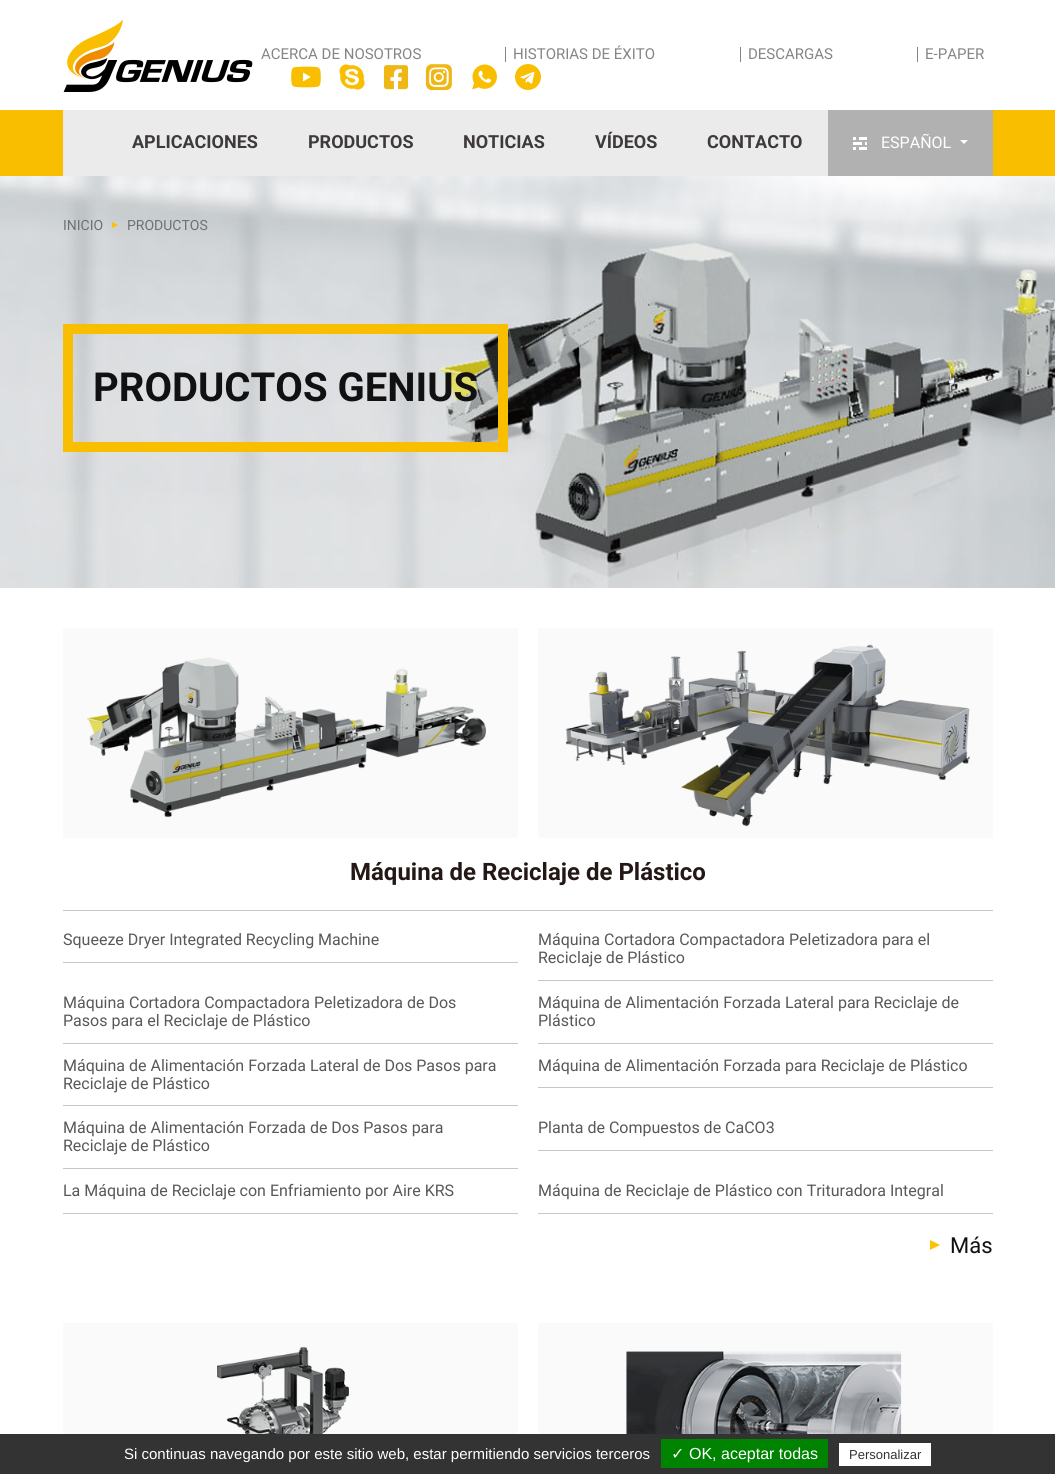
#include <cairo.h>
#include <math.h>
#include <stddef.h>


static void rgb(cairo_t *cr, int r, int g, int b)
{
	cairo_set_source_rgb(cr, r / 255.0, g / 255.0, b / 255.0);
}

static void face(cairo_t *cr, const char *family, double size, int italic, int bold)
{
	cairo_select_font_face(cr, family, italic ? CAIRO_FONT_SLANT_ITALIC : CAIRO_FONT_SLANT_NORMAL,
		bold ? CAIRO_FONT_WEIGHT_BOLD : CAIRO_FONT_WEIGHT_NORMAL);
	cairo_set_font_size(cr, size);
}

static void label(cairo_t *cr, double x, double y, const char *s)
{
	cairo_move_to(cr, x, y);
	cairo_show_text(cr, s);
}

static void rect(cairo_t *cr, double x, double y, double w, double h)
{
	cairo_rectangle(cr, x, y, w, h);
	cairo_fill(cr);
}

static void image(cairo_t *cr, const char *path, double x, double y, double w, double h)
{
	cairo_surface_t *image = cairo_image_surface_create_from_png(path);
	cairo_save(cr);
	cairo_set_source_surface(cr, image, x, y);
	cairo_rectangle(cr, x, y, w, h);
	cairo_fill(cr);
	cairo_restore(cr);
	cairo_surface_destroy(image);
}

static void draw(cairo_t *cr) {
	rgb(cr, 255, 255, 255);
	cairo_paint(cr);
	image(cr, "image0.png", 63, 20, 190, 72);
	face(cr, "Roboto", 15, 0, 0);
	rgb(cr, 133, 133, 133);
	label(cr, 261, 59, "ACERCA DE NOSOTROS");
	rect(cr, 505, 47, 1, 15);
	label(cr, 513, 59, "HISTORIAS DE ÉXITO");
	rect(cr, 740, 47, 1, 15);
	label(cr, 748, 59, "DESCARGAS");
	rect(cr, 917, 47, 1, 15);
	label(cr, 925, 59, "E-PAPER");
	image(cr, "image1.png", 291, 66, 30, 22);
	image(cr, "image2.png", 339, 64, 26, 26);
	image(cr, "image3.png", 383, 65, 26, 25);
	image(cr, "image4.png", 425, 64, 27, 27);
	image(cr, "image5.png", 472, 64, 25, 26);
	image(cr, "image6.png", 515, 64, 26, 26);
	rgb(cr, 249, 190, 0);
	rect(cr, 0, 110, 1055, 66);
	rgb(cr, 235, 235, 236);
	rect(cr, 63, 110, 765, 66);
	face(cr, "Roboto", 18, 0, 1);
	rgb(cr, 62, 58, 57);
	label(cr, 132, 148, "APLICACIONES");
	label(cr, 308, 148, "PRODUCTOS");
	label(cr, 463, 148, "NOTICIAS");
	label(cr, 595, 148, "VÍDEOS");
	label(cr, 707, 148, "CONTACTO");
	rgb(cr, 177, 177, 178);
	rect(cr, 828, 110, 165, 66);
	image(cr, "image7.png", 853, 137, 14, 13);
	face(cr, "Roboto", 16, 0, 0);
	rgb(cr, 255, 255, 255);
	label(cr, 881, 148, "ESPAÑOL");
	cairo_new_path(cr);
	cairo_move_to(cr, 960, 140);
	cairo_line_to(cr, 968, 140);
	cairo_line_to(cr, 964, 144);
	cairo_close_path(cr);
	cairo_fill(cr);
	image(cr, "image8.png", 0, 176, 1055, 412);
	face(cr, "Roboto", 14, 0, 0);
	rgb(cr, 113, 112, 113);
	label(cr, 63, 230, "INICIO");
	rgb(cr, 252, 193, 0);
	cairo_new_path(cr);
	cairo_move_to(cr, 112, 228);
	cairo_line_to(cr, 112, 222);
	cairo_line_to(cr, 118, 225);
	cairo_close_path(cr);
	cairo_fill(cr);
	rgb(cr, 113, 112, 113);
	label(cr, 127, 230, "PRODUCTOS");
	cairo_rectangle(cr, 68, 329, 435, 118);
	rgb(cr, 249, 190, 0);
	cairo_set_line_width(cr, 10);
	cairo_stroke(cr);
	face(cr, "Roboto", 40, 0, 1);
	rgb(cr, 17, 17, 17);
	label(cr, 93, 401, "PRODUCTOS GENIUS");
	rgb(cr, 250, 250, 250);
	rect(cr, 63, 628, 455, 210);
	image(cr, "image9.png", 86, 657, 400, 160);
	rect(cr, 538, 628, 455, 210);
	image(cr, "image10.png", 565, 644, 405, 183);
	rgb(cr, 197, 198, 199);
	rect(cr, 63, 910, 930, 1);
	face(cr, "Roboto", 24, 0, 1);
	rgb(cr, 35, 24, 21);
	label(cr, 350, 880, "Máquina de Reciclaje de Plástico");
	rgb(cr, 197, 198, 199);
	rect(cr, 63, 962, 455, 1);
	face(cr, "Roboto", 16, 0, 0);
	rgb(cr, 89, 87, 87);
	label(cr, 63, 945, "Squeeze Dryer Integrated Recycling Machine");
	rgb(cr, 197, 198, 199);
	rect(cr, 538, 980, 455, 1);
	rgb(cr, 89, 87, 87);
	label(cr, 538, 945, "Máquina Cortadora Compactadora Peletizadora para el");
	label(cr, 538, 963, "Reciclaje de Plástico");
	rgb(cr, 197, 198, 199);
	rect(cr, 63, 1043, 455, 1);
	rgb(cr, 89, 87, 87);
	label(cr, 63, 1008, "Máquina Cortadora Compactadora Peletizadora de Dos");
	label(cr, 63, 1026, "Pasos para el Reciclaje de Plástico");
	rgb(cr, 197, 198, 199);
	rect(cr, 538, 1043, 455, 1);
	rgb(cr, 89, 87, 87);
	label(cr, 538, 1008, "Máquina de Alimentación Forzada Lateral para Reciclaje de");
	label(cr, 538, 1026, "Plástico");
	rgb(cr, 197, 198, 199);
	rect(cr, 63, 1105, 455, 1);
	rgb(cr, 89, 87, 87);
	label(cr, 63, 1071, "Máquina de Alimentación Forzada Lateral de Dos Pasos para");
	label(cr, 63, 1089, "Reciclaje de Plástico");
	rgb(cr, 197, 198, 199);
	rect(cr, 538, 1087, 455, 1);
	rgb(cr, 89, 87, 87);
	label(cr, 538, 1071, "Máquina de Alimentación Forzada para Reciclaje de Plástico");
	rgb(cr, 197, 198, 199);
	rect(cr, 63, 1168, 455, 1);
	rgb(cr, 89, 87, 87);
	label(cr, 63, 1133, "Máquina de Alimentación Forzada de Dos Pasos para");
	label(cr, 63, 1151, "Reciclaje de Plástico");
	rgb(cr, 197, 198, 199);
	rect(cr, 538, 1150, 455, 1);
	rgb(cr, 89, 87, 87);
	label(cr, 538, 1133, "Planta de Compuestos de CaCO3");
	rgb(cr, 197, 198, 199);
	rect(cr, 63, 1213, 455, 1);
	rgb(cr, 89, 87, 87);
	label(cr, 63, 1196, "La Máquina de Reciclaje con Enfriamiento por Aire KRS");
	rgb(cr, 197, 198, 199);
	rect(cr, 538, 1213, 455, 1);
	rgb(cr, 89, 87, 87);
	label(cr, 538, 1196, "Máquina de Reciclaje de Plástico con Trituradora Integral");
	rgb(cr, 252, 193, 0);
	cairo_new_path(cr);
	cairo_move_to(cr, 930, 1250);
	cairo_line_to(cr, 930, 1240);
	cairo_line_to(cr, 940, 1245);
	cairo_close_path(cr);
	cairo_fill(cr);
	face(cr, "Roboto", 22, 0, 0);
	rgb(cr, 17, 17, 17);
	label(cr, 950, 1253, "Más");
	rgb(cr, 250, 250, 250);
	rect(cr, 63, 1323, 455, 111);
	image(cr, "image11.png", 217, 1347, 133, 87);
	rect(cr, 538, 1323, 455, 111);
	image(cr, "image12.png", 626, 1351, 276, 83);
	rgb(cr, 51, 51, 51);
	rect(cr, 0, 1434, 1055, 40);
	face(cr, "Liberation Sans", 15, 0, 0);
	rgb(cr, 255, 255, 255);
	label(cr, 124, 1459, "Si continuas navegando por este sitio web, estar permitiendo servicios terceros");
	rgb(cr, 0, 131, 0);
	rect(cr, 661, 1439, 167, 29);
	face(cr, "DejaVu Sans", 16, 0, 0);
	rgb(cr, 255, 255, 255);
	label(cr, 671, 1459, "✓");
	face(cr, "Liberation Sans", 16, 0, 0);
	label(cr, 689, 1459, "OK, aceptar todas");
	rect(cr, 839, 1443, 92, 23);
	face(cr, "Liberation Sans", 13, 0, 0);
	rgb(cr, 51, 51, 51);
	label(cr, 849, 1459, "Personalizar");
}

int main(void) {
	cairo_surface_t *surface = cairo_image_surface_create(CAIRO_FORMAT_RGB24, 1055, 1474);
	cairo_t *cr = cairo_create(surface);
	cairo_font_options_t *options = cairo_font_options_create();
	cairo_font_options_set_hint_metrics(options, CAIRO_HINT_METRICS_OFF);
	cairo_font_options_set_hint_style(options, CAIRO_HINT_STYLE_NONE);
	cairo_set_font_options(cr, options);
	cairo_set_miter_limit(cr, 4);
	draw(cr);
	cairo_surface_write_to_png(surface, "render.png");
	cairo_font_options_destroy(options);
	cairo_destroy(cr);
	cairo_surface_destroy(surface);
	return 0;
}
